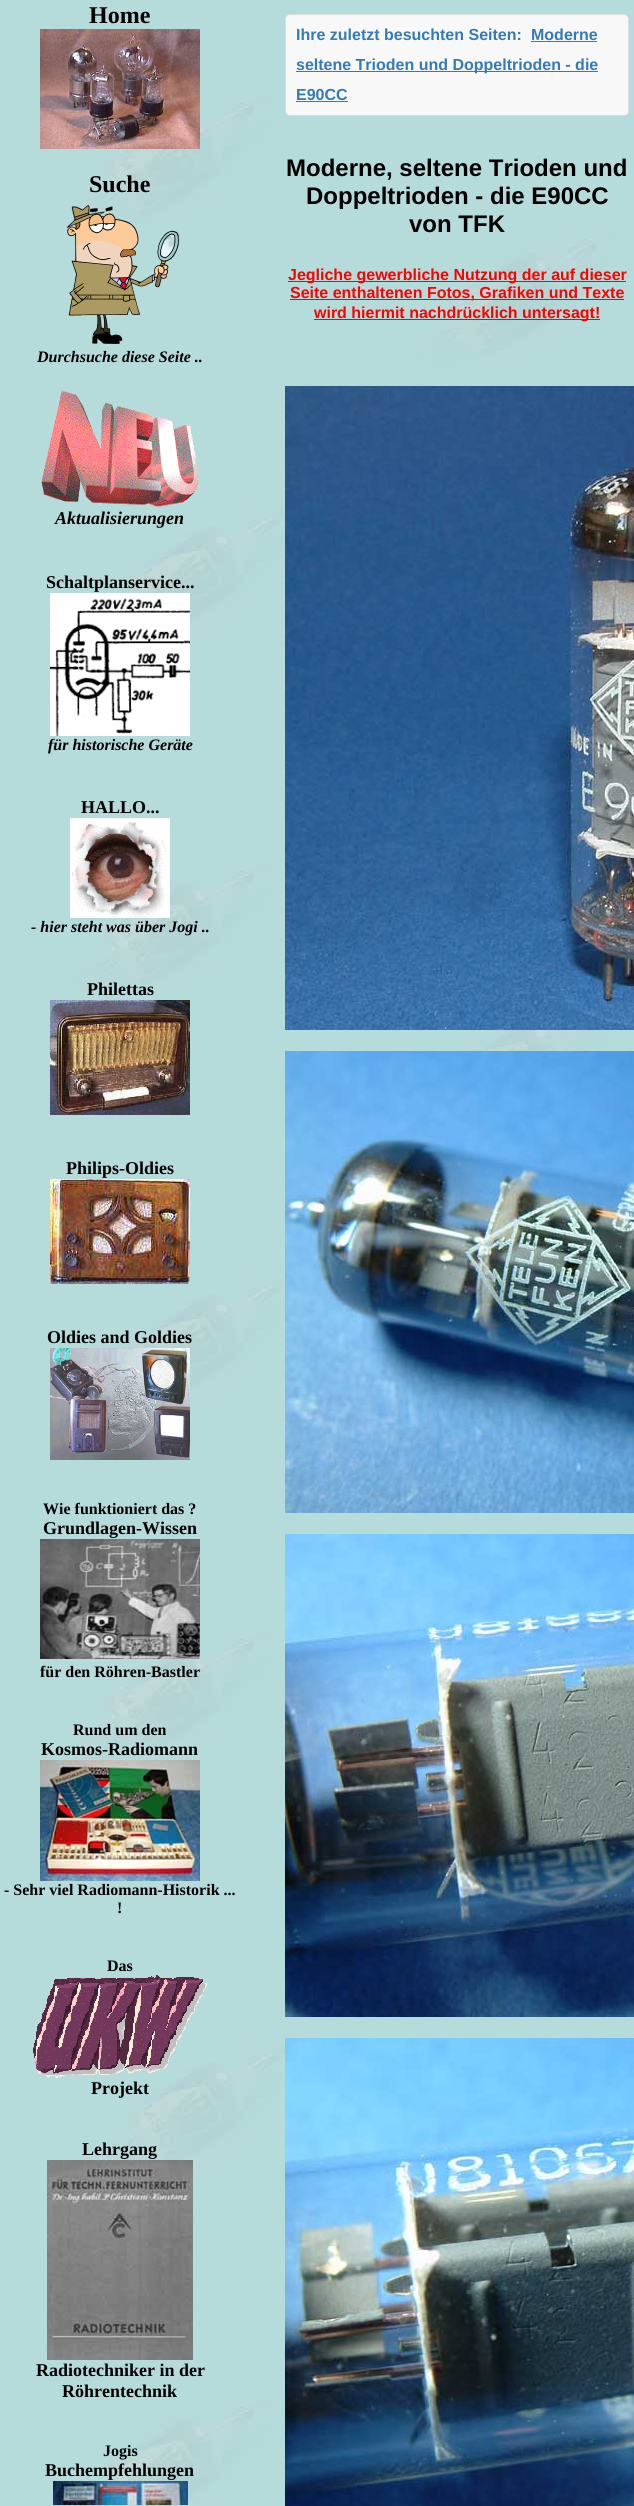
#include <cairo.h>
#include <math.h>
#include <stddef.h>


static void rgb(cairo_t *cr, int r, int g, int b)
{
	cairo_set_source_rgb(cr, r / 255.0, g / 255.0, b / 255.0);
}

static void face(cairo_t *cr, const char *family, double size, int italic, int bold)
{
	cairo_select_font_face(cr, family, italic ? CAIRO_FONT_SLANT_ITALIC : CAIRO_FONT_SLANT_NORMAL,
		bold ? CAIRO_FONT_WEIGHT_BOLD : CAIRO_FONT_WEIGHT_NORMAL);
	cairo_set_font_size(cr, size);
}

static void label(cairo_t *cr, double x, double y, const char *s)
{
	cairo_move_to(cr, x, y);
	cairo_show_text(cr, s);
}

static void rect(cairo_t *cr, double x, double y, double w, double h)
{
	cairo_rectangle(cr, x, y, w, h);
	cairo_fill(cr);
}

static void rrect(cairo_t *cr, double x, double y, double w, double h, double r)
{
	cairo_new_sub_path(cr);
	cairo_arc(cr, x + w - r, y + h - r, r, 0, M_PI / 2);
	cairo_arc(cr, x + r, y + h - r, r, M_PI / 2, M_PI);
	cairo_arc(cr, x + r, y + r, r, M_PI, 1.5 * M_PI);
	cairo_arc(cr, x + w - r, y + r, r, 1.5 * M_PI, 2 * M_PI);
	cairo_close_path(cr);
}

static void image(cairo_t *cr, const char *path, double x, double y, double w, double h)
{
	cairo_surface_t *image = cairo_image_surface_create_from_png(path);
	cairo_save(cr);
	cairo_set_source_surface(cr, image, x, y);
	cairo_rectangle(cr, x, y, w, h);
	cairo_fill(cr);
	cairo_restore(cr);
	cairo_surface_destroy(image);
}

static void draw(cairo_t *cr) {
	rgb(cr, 255, 255, 255);
	cairo_paint(cr);
	image(cr, "image0.png", 0, 0, 634, 2506);
	face(cr, "Liberation Serif", 24, 0, 1);
	rgb(cr, 0, 0, 0);
	label(cr, 89, 23, "Home");
	image(cr, "image1.png", 40, 29, 160, 120);
	label(cr, 89, 192, "Suche");
	image(cr, "image2.png", 66, 205, 114, 139);
	face(cr, "Liberation Serif", 16, 1, 1);
	label(cr, 37, 362, "Durchsuche diese Seite ..");
	image(cr, "image3.png", 41, 390, 158, 117);
	face(cr, "Liberation Serif", 18, 1, 1);
	label(cr, 55, 524, "Aktualisierungen");
	face(cr, "Liberation Serif", 18, 0, 1);
	label(cr, 46, 588, "Schaltplanservice...");
	image(cr, "image4.png", 50, 593, 140, 143);
	face(cr, "Liberation Serif", 16, 1, 1);
	label(cr, 48, 750, "für historische Geräte");
	face(cr, "Liberation Serif", 18, 0, 1);
	label(cr, 81, 813, "HALLO...");
	image(cr, "image5.png", 70, 818, 100, 100);
	face(cr, "Liberation Serif", 16, 1, 1);
	label(cr, 31, 932, "- hier steht was über Jogi ..");
	face(cr, "Liberation Serif", 18, 0, 1);
	label(cr, 87, 995, "Philettas");
	image(cr, "image6.png", 50, 1000, 140, 115);
	label(cr, 66, 1174, "Philips-Oldies");
	image(cr, "image7.png", 50, 1179, 140, 105);
	label(cr, 47, 1343, "Oldies and Goldies");
	image(cr, "image8.png", 50, 1348, 140, 112);
	face(cr, "Liberation Serif", 16, 0, 1);
	label(cr, 43, 1514, "Wie funktioniert das ?");
	face(cr, "Liberation Serif", 18, 0, 1);
	label(cr, 43, 1534, "Grundlagen-Wissen");
	image(cr, "image9.png", 40, 1539, 160, 120);
	face(cr, "Liberation Serif", 16, 0, 1);
	label(cr, 40, 1677, "für den Röhren-Bastler");
	label(cr, 73, 1735, "Rund um den");
	face(cr, "Liberation Serif", 18, 0, 1);
	label(cr, 41, 1755, "Kosmos-Radiomann");
	image(cr, "image10.png", 40, 1760, 160, 121);
	face(cr, "Liberation Serif", 16, 0, 1);
	label(cr, 4, 1895, "- Sehr viel Radiomann-Historik ...");
	label(cr, 117, 1913, "!");
	label(cr, 107, 1971, "Das");
	image(cr, "image11.png", 33, 1975, 174, 103);
	face(cr, "Liberation Serif", 18, 0, 1);
	label(cr, 91, 2094, "Projekt");
	label(cr, 82, 2155, "Lehrgang");
	image(cr, "image12.png", 47, 2160, 146, 200);
	label(cr, 36, 2376, "Radiotechniker in der");
	label(cr, 62, 2397, "Röhrentechnik");
	face(cr, "Liberation Serif", 16, 0, 1);
	label(cr, 103, 2456, "Jogis");
	face(cr, "Liberation Serif", 18, 0, 1);
	label(cr, 45, 2476, "Buchempfehlungen");
	image(cr, "image13.png", 53, 2481, 135, 24);
	rgb(cr, 248, 248, 248);
	rrect(cr, 285.5, 14.5, 343, 101, 4.5);
	cairo_fill_preserve(cr);
	rgb(cr, 221, 221, 221);
	cairo_set_line_width(cr, 1);
	cairo_stroke(cr);
	face(cr, "Liberation Sans", 16, 0, 1);
	rgb(cr, 51, 122, 183);
	label(cr, 296, 40, "Ihre zuletzt besuchten Seiten:");
	label(cr, 531, 40, "Moderne");
	rect(cr, 531, 41, 66, 1);
	rect(cr, 296, 71, 302, 1);
	label(cr, 296, 70, "seltene Trioden und Doppeltrioden - die");
	label(cr, 296, 100, "E90CC");
	rect(cr, 296, 101, 52, 1);
	face(cr, "Liberation Sans", 24, 0, 1);
	rgb(cr, 0, 0, 0);
	label(cr, 286, 176, "Moderne, seltene Trioden und");
	label(cr, 306, 204, "Doppeltrioden - die E90CC");
	label(cr, 409, 232, "von TFK");
	rgb(cr, 255, 0, 0);
	rect(cr, 288, 281, 338, 1);
	face(cr, "Liberation Sans", 16, 0, 1);
	label(cr, 288, 280, "Jegliche gewerbliche Nutzung der auf dieser");
	rect(cr, 290, 299, 334, 1);
	label(cr, 290, 298, "Seite enthaltenen Fotos, Grafiken und Texte");
	rect(cr, 314, 319, 286, 1);
	label(cr, 314, 318, "wird hiermit nachdrücklich untersagt!");
	image(cr, "image14.png", 285, 386, 349, 644);
	image(cr, "image15.png", 285, 1051, 349, 462);
	image(cr, "image16.png", 285, 1534, 349, 483);
	image(cr, "image17.png", 285, 2038, 349, 468);
}

int main(void) {
	cairo_surface_t *surface = cairo_image_surface_create(CAIRO_FORMAT_RGB24, 634, 2506);
	cairo_t *cr = cairo_create(surface);
	cairo_font_options_t *options = cairo_font_options_create();
	cairo_font_options_set_hint_metrics(options, CAIRO_HINT_METRICS_OFF);
	cairo_font_options_set_hint_style(options, CAIRO_HINT_STYLE_NONE);
	cairo_set_font_options(cr, options);
	cairo_set_miter_limit(cr, 4);
	draw(cr);
	cairo_surface_write_to_png(surface, "render.png");
	cairo_font_options_destroy(options);
	cairo_destroy(cr);
	cairo_surface_destroy(surface);
	return 0;
}
